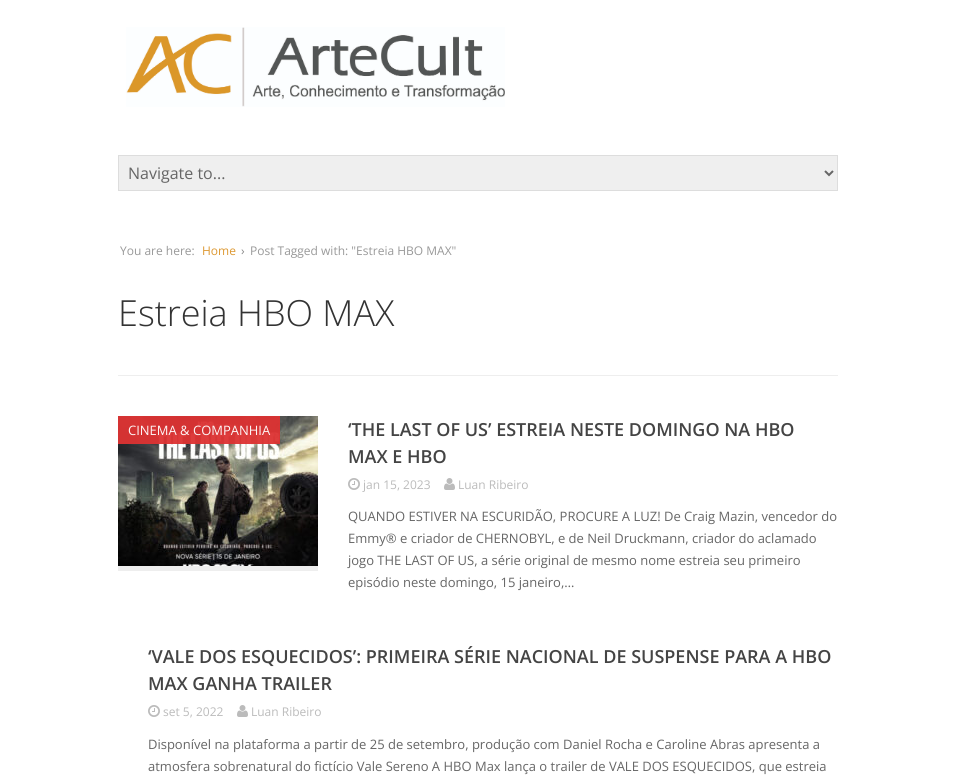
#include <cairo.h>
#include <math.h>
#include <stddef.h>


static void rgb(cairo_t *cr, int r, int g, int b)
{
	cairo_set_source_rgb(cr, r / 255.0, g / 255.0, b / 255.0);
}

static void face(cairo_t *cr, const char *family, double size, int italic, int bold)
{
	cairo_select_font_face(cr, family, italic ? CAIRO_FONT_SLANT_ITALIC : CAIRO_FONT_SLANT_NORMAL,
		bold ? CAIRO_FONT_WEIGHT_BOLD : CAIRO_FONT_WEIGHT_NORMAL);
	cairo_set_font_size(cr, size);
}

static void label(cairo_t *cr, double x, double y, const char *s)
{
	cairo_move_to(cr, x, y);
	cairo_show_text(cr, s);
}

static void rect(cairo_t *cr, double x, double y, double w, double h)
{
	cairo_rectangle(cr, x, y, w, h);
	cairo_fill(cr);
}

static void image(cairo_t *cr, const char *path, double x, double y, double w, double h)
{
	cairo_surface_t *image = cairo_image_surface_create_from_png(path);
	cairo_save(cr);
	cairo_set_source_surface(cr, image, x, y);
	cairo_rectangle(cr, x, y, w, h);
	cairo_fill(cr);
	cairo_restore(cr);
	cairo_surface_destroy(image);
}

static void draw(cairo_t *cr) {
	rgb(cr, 255, 255, 255);
	cairo_paint(cr);
	image(cr, "image0.png", 126, 27, 379, 80);
	rgb(cr, 239, 239, 239);
	cairo_rectangle(cr, 118.5, 155.5, 719, 35);
	cairo_fill_preserve(cr);
	rgb(cr, 221, 221, 221);
	cairo_set_line_width(cr, 1);
	cairo_stroke(cr);
	cairo_new_path(cr);
	cairo_move_to(cr, 825, 171);
	cairo_line_to(cr, 829, 175);
	cairo_line_to(cr, 833, 171);
	rgb(cr, 102, 102, 102);
	cairo_set_line_width(cr, 2);
	cairo_stroke(cr);
	face(cr, "Open Sans", 16, 0, 0);
	label(cr, 128, 179, "Navigate to...");
	face(cr, "Open Sans", 12, 0, 0);
	rgb(cr, 153, 153, 153);
	label(cr, 120, 255, "You are here:");
	rgb(cr, 221, 153, 51);
	label(cr, 202, 255, "Home");
	rgb(cr, 136, 136, 136);
	label(cr, 241, 255, "›");
	rgb(cr, 153, 153, 153);
	label(cr, 250, 255, "Post Tagged with: \"Estreia HBO MAX\"");
	rgb(cr, 238, 238, 238);
	rect(cr, 118, 375, 720, 1);
	face(cr, "Open Sans Light", 36, 0, 0);
	rgb(cr, 51, 51, 51);
	label(cr, 118, 326, "Estreia HBO MAX");
	rgb(cr, 238, 238, 238);
	rect(cr, 118, 566, 200, 5);
	image(cr, "image1.png", 118, 416, 200, 150);
	cairo_set_source_rgba(cr, 0.867, 0.2, 0.2, 0.95);
	rect(cr, 118, 416, 162, 28);
	face(cr, "Open Sans", 13, 0, 0);
	rgb(cr, 253, 245, 245);
	label(cr, 128, 435, "CINEMA & COMPANHIA");
	face(cr, "Open Sans SemiBold", 18, 0, 0);
	rgb(cr, 68, 68, 68);
	label(cr, 348, 436, "‘THE LAST OF US’ ESTREIA NESTE DOMINGO NA HBO");
	label(cr, 348, 463, "MAX E HBO");
	image(cr, "image2.png", 348, 478, 12, 12);
	face(cr, "Open Sans", 12, 0, 0);
	rgb(cr, 187, 187, 187);
	label(cr, 363, 489, "jan 15, 2023");
	image(cr, "image3.png", 444, 478, 11, 12);
	label(cr, 458, 489, "Luan Ribeiro");
	face(cr, "Open Sans", 13, 0, 0);
	rgb(cr, 102, 102, 102);
	label(cr, 348, 521, "QUANDO ESTIVER NA ESCURIDÃO, PROCURE A LUZ! De Craig Mazin, vencedor do");
	label(cr, 348, 543, "Emmy® e criador de CHERNOBYL, e de Neil Druckmann, criador do aclamado");
	label(cr, 348, 565, "jogo THE LAST OF US, a série original de mesmo nome estreia seu primeiro");
	label(cr, 348, 587, "episódio neste domingo, 15 janeiro,…");
	face(cr, "Open Sans SemiBold", 18, 0, 0);
	rgb(cr, 68, 68, 68);
	label(cr, 148, 663, "‘VALE DOS ESQUECIDOS’: PRIMEIRA SÉRIE NACIONAL DE SUSPENSE PARA A HBO");
	label(cr, 148, 690, "MAX GANHA TRAILER");
	image(cr, "image2.png", 148, 705, 12, 12);
	face(cr, "Open Sans", 12, 0, 0);
	rgb(cr, 187, 187, 187);
	label(cr, 163, 716, "set 5, 2022");
	image(cr, "image3.png", 237, 705, 11, 12);
	label(cr, 251, 716, "Luan Ribeiro");
	face(cr, "Open Sans", 13, 0, 0);
	rgb(cr, 102, 102, 102);
	label(cr, 148, 749, "Disponível na plataforma a partir de 25 de setembro, produção com Daniel Rocha e Caroline Abras apresenta a");
	label(cr, 148, 771, "atmosfera sobrenatural do fictício Vale Sereno A HBO Max lança o trailer de VALE DOS ESQUECIDOS, que estreia");
}

int main(void) {
	cairo_surface_t *surface = cairo_image_surface_create(CAIRO_FORMAT_RGB24, 956, 781);
	cairo_t *cr = cairo_create(surface);
	cairo_font_options_t *options = cairo_font_options_create();
	cairo_font_options_set_hint_metrics(options, CAIRO_HINT_METRICS_OFF);
	cairo_font_options_set_hint_style(options, CAIRO_HINT_STYLE_NONE);
	cairo_set_font_options(cr, options);
	cairo_set_miter_limit(cr, 4);
	draw(cr);
	cairo_surface_write_to_png(surface, "render.png");
	cairo_font_options_destroy(options);
	cairo_destroy(cr);
	cairo_surface_destroy(surface);
	return 0;
}
